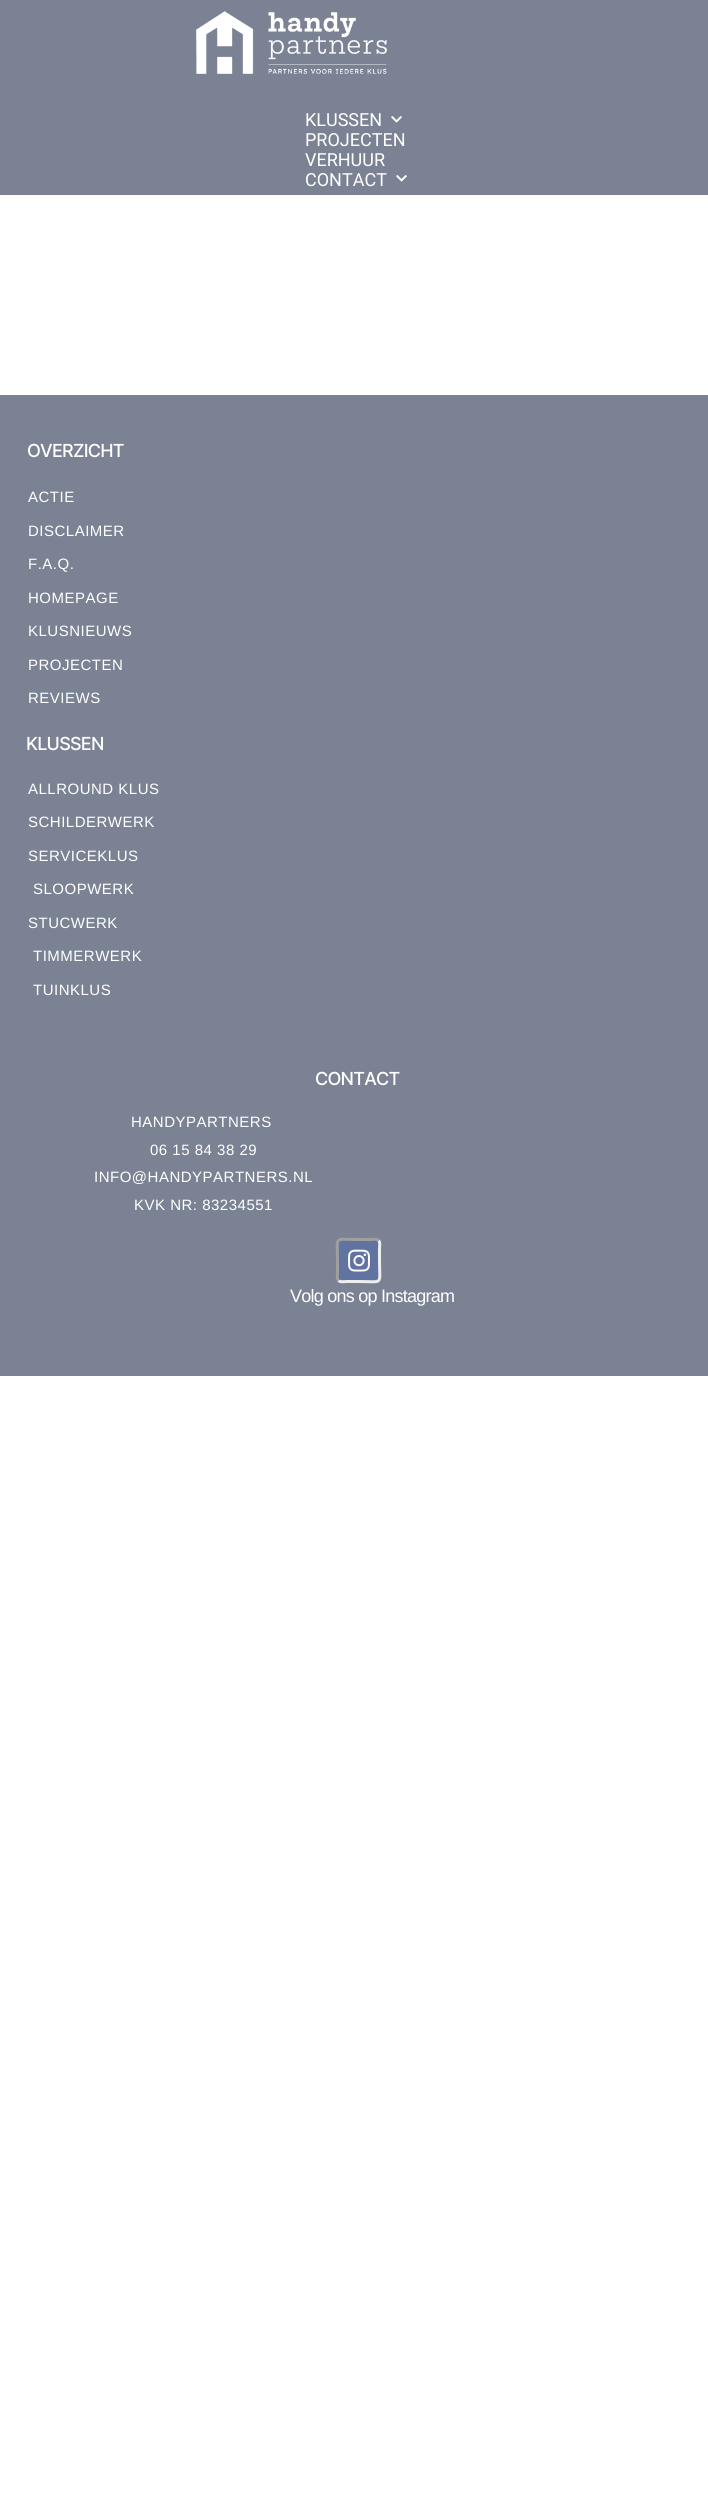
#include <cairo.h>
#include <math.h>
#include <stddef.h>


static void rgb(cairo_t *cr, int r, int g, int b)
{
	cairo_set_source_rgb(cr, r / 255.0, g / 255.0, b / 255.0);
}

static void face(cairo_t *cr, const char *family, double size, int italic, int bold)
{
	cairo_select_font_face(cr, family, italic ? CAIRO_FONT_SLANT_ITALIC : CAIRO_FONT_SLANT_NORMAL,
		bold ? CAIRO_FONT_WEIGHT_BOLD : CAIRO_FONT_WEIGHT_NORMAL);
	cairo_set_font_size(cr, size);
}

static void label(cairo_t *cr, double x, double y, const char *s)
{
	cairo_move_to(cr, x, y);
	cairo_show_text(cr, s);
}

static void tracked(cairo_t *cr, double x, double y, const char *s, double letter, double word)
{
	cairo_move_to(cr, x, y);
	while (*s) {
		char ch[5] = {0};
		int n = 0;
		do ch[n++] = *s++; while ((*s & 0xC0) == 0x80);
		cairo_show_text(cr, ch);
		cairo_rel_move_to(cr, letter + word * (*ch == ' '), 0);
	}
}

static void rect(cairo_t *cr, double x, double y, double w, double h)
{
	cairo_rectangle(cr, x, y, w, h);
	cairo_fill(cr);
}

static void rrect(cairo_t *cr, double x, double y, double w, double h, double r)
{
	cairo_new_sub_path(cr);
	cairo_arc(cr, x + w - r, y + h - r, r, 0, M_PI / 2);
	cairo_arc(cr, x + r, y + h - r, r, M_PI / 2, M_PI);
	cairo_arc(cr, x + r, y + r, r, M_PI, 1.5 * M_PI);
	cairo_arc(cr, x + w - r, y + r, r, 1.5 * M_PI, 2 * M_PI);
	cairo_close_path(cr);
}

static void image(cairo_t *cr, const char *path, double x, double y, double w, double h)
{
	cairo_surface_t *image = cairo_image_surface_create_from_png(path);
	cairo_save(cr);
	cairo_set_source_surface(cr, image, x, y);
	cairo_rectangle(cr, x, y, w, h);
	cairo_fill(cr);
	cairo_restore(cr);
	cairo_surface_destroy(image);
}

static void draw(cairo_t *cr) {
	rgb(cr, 255, 255, 255);
	cairo_paint(cr);
	rgb(cr, 123, 130, 147);
	rect(cr, 0, 0, 708, 195);
	image(cr, "image0.png", 196, 11, 191, 63);
	face(cr, "Roboto", 18, 0, 0);
	rgb(cr, 255, 255, 255);
	label(cr, 305, 126, "KLUSSEN");
	image(cr, "image1.png", 391, 116, 11, 7);
	label(cr, 305, 146, "PROJECTEN");
	label(cr, 305, 166, "VERHUUR");
	label(cr, 305, 186, "CONTACT");
	image(cr, "image1.png", 396, 175, 11, 7);
	rgb(cr, 123, 130, 147);
	rect(cr, 0, 395, 708, 981);
	face(cr, "Inter Medium", 18, 0, 0);
	rgb(cr, 255, 255, 255);
	tracked(cr, 27, 457, "OVERZICHT", -0.75, 0);
	face(cr, "Liberation Sans", 15, 0, 0);
	tracked(cr, 28, 502, "ACTIE", 0.5, 0);
	tracked(cr, 28, 536, "DISCLAIMER", 0.5, 0);
	tracked(cr, 28, 569, "F.A.Q.", 0.5, 0);
	tracked(cr, 28, 603, "HOMEPAGE", 0.5, 0);
	tracked(cr, 28, 636, "KLUSNIEUWS", 0.5, 0);
	tracked(cr, 28, 670, "PROJECTEN", 0.5, 0);
	tracked(cr, 28, 703, "REVIEWS", 0.5, 0);
	face(cr, "Inter Medium", 18, 0, 0);
	tracked(cr, 26, 750, "KLUSSEN", -0.75, 0);
	face(cr, "Liberation Sans", 15, 0, 0);
	tracked(cr, 28, 794, "ALLROUND KLUS", 0.5, 0);
	tracked(cr, 28, 827, "SCHILDERWERK", 0.5, 0);
	tracked(cr, 28, 861, "SERVICEKLUS", 0.5, 0);
	tracked(cr, 33, 894, "SLOOPWERK", 0.5, 0);
	tracked(cr, 28, 928, "STUCWERK", 0.5, 0);
	tracked(cr, 33, 961, "TIMMERWERK", 0.5, 0);
	tracked(cr, 33, 995, "TUINKLUS", 0.5, 0);
	face(cr, "Inter Medium", 18, 0, 0);
	tracked(cr, 315, 1085, "CONTACT", -0.75, 0);
	face(cr, "Liberation Sans", 15, 0, 0);
	tracked(cr, 131, 1127, "HANDYPARTNERS", 0.5, 0);
	tracked(cr, 150, 1155, "06 15 84 38 29", 0.5, 0);
	tracked(cr, 94, 1182, "INFO@HANDYPARTNERS.NL", 0.5, 0);
	tracked(cr, 134, 1210, "KVK NR: 83234551", 0.5, 0);
	rgb(cr, 97, 116, 161);
	rrect(cr, 336, 1238, 45, 45, 5);
	cairo_fill(cr);
	cairo_new_path(cr);
	cairo_move_to(cr, 378.5, 1240.5);
	cairo_curve_to(cr, 380.5, 1242, 379.5, 1247, 379.5, 1248.5);
	cairo_line_to(cr, 379.5, 1260.5);
	cairo_curve_to(cr, 379.5, 1286, 384, 1281.5, 358.5, 1281.5);
	cairo_line_to(cr, 346.5, 1281.5);
	cairo_curve_to(cr, 345, 1281.5, 340, 1282.5, 338.5, 1280.5);
	rgb(cr, 238, 238, 238);
	cairo_set_line_width(cr, 3);
	cairo_stroke(cr);
	cairo_new_path(cr);
	cairo_move_to(cr, 338.5, 1280.5);
	cairo_curve_to(cr, 336.5, 1279, 337.5, 1274, 337.5, 1272.5);
	cairo_line_to(cr, 337.5, 1260.5);
	cairo_curve_to(cr, 337.5, 1235, 333, 1239.5, 358.5, 1239.5);
	cairo_line_to(cr, 370.5, 1239.5);
	cairo_curve_to(cr, 372, 1239.5, 377, 1238.5, 378.5, 1240.5);
	rgb(cr, 159, 159, 159);
	cairo_stroke(cr);
	image(cr, "image2.png", 348, 1249, 22, 23);
	face(cr, "Liberation Sans", 18, 0, 0);
	rgb(cr, 255, 255, 255);
	tracked(cr, 290, 1302, "Volg ons op Instagram", -0.75, 0);
}

int main(void) {
	cairo_surface_t *surface = cairo_image_surface_create(CAIRO_FORMAT_RGB24, 708, 2495);
	cairo_t *cr = cairo_create(surface);
	cairo_font_options_t *options = cairo_font_options_create();
	cairo_font_options_set_hint_metrics(options, CAIRO_HINT_METRICS_OFF);
	cairo_font_options_set_hint_style(options, CAIRO_HINT_STYLE_NONE);
	cairo_set_font_options(cr, options);
	cairo_set_miter_limit(cr, 4);
	draw(cr);
	cairo_surface_write_to_png(surface, "render.png");
	cairo_font_options_destroy(options);
	cairo_destroy(cr);
	cairo_surface_destroy(surface);
	return 0;
}
